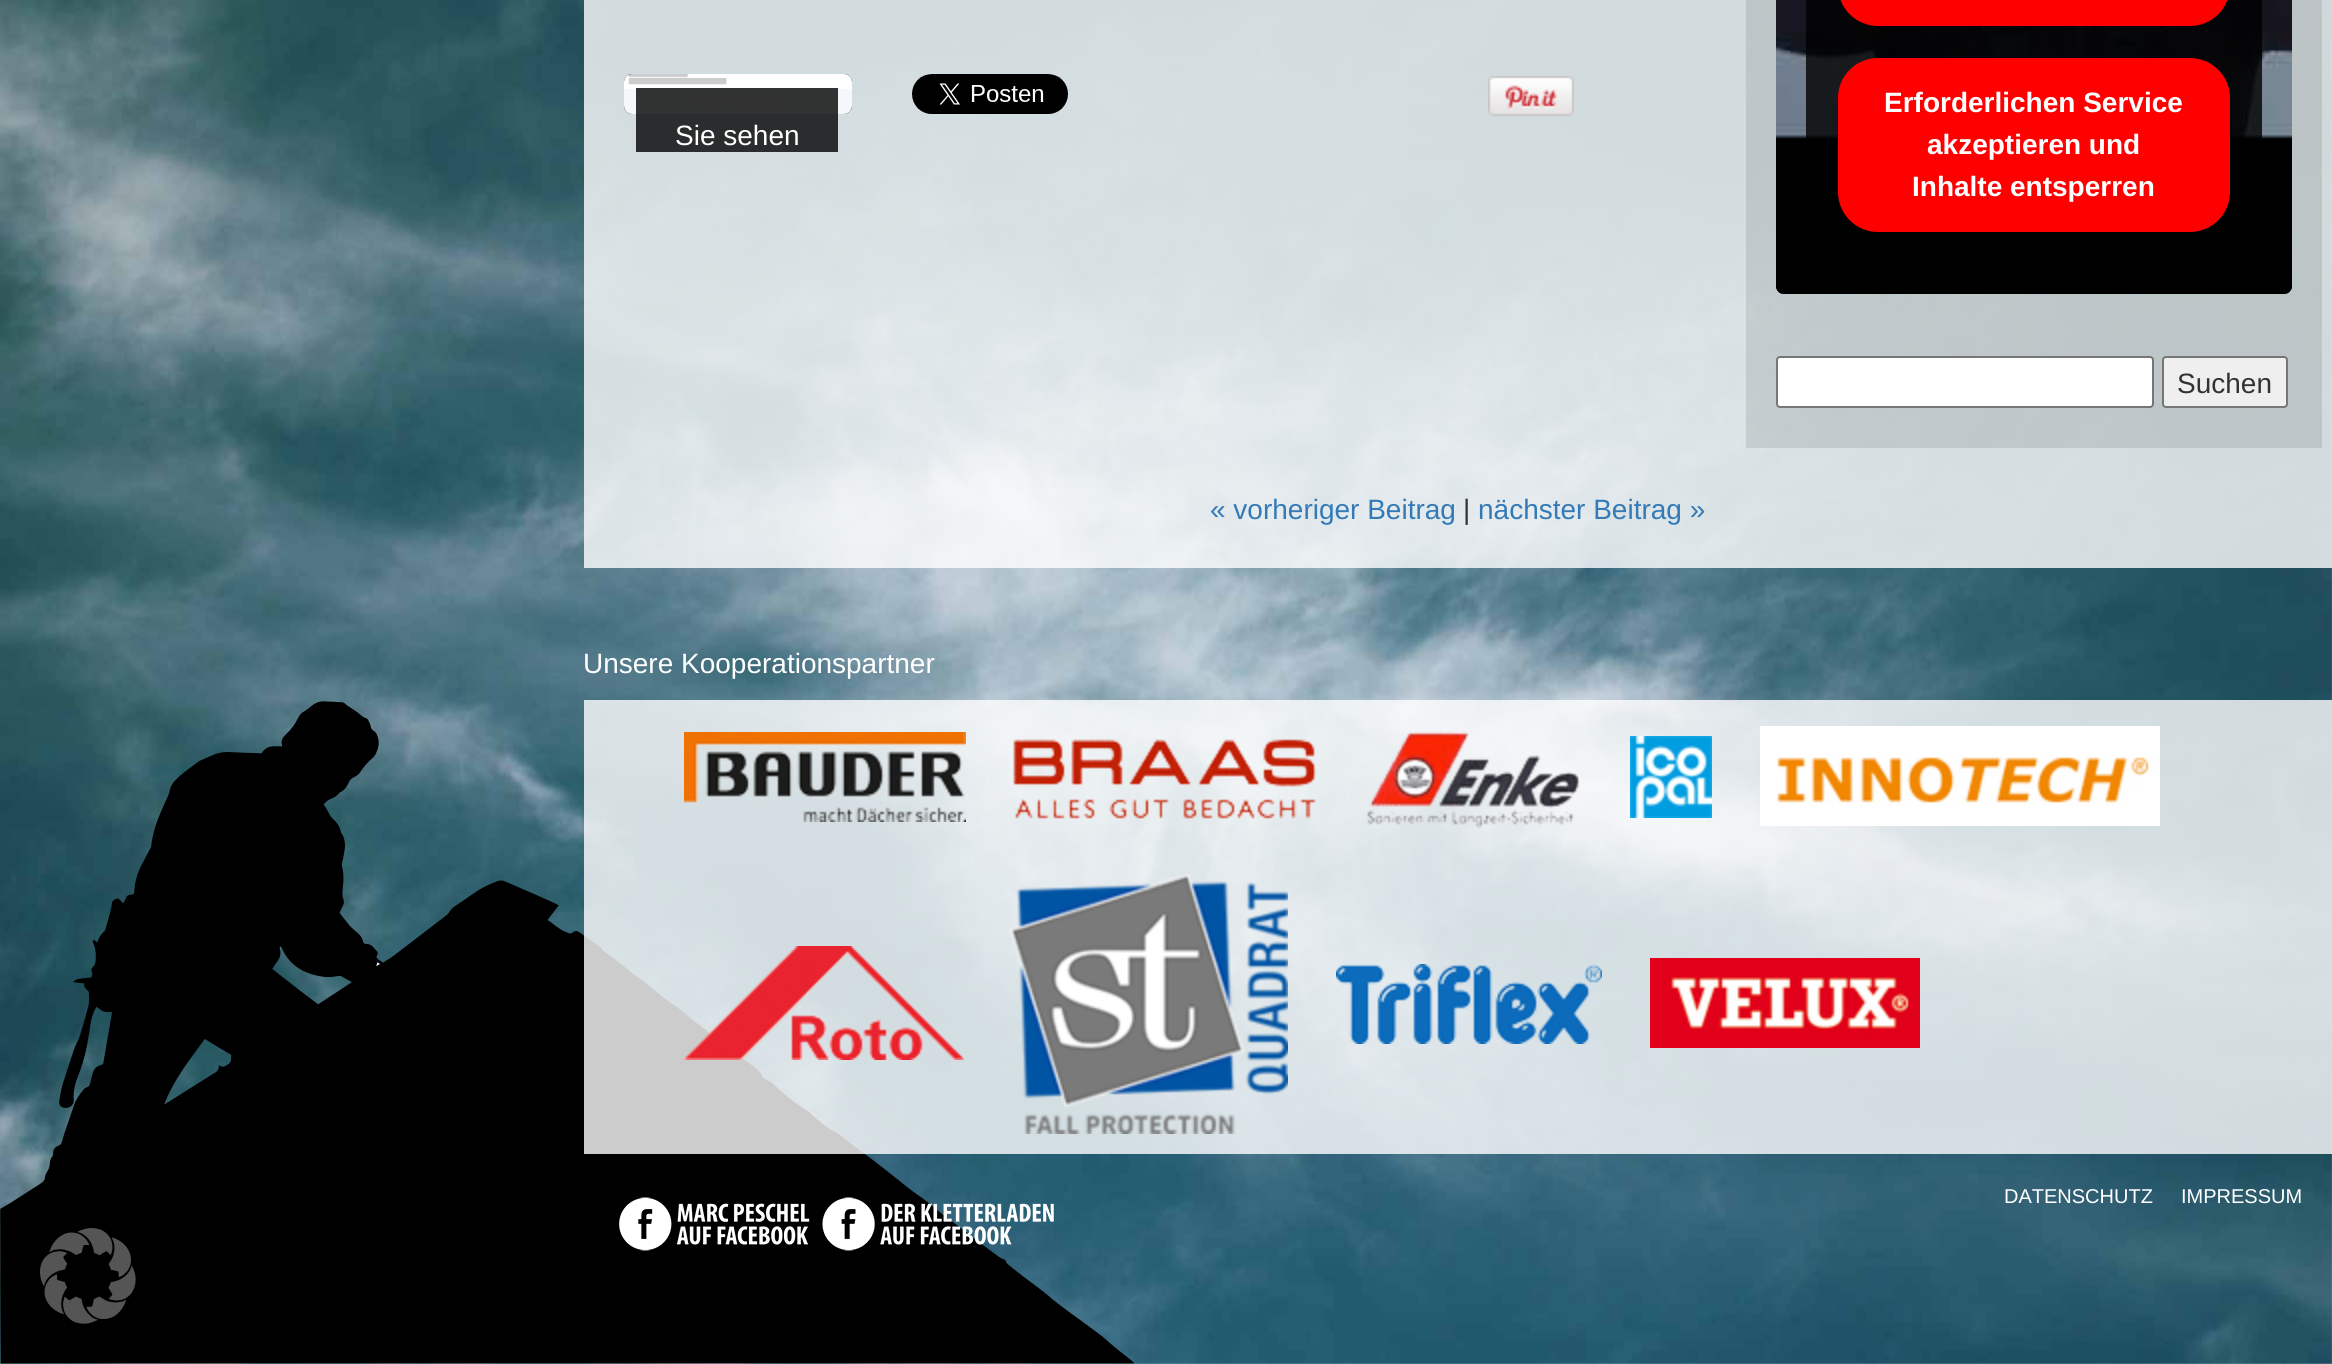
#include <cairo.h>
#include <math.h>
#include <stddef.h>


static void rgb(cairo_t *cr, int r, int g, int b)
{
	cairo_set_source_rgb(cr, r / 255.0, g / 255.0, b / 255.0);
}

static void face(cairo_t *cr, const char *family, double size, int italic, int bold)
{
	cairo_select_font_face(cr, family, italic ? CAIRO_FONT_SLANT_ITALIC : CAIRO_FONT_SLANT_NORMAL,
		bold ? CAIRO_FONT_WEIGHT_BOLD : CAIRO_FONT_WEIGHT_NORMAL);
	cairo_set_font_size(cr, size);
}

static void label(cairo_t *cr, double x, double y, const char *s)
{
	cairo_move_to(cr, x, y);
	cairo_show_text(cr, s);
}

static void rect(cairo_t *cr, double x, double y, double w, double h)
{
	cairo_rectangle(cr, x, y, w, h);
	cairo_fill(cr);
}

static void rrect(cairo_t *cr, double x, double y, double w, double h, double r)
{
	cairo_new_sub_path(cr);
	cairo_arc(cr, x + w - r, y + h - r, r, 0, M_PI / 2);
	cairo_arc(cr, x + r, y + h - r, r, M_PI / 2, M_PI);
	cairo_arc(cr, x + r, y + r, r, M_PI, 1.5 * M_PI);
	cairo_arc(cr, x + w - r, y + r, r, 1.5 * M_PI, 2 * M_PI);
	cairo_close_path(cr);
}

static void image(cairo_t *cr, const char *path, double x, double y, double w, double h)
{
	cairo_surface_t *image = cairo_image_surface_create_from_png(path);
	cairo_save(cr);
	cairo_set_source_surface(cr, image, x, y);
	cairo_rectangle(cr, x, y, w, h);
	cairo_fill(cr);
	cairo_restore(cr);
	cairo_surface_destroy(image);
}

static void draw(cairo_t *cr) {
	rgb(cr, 255, 255, 255);
	cairo_paint(cr);
	image(cr, "image0.png", 0, 0, 2332, 1364);
	image(cr, "image1.png", 0, 701, 1134, 663);
	cairo_set_source_rgba(cr, 1, 1, 1, 0.8);
	rect(cr, 584, 0, 1748, 568);
	image(cr, "image2.png", 912, 74, 156, 40);
	image(cr, "image3.png", 1488, 76, 86, 41);
	rgb(cr, 0, 0, 0);
	rrect(cr, 624, 74, 228, 40, 8);
	cairo_fill(cr);
	image(cr, "image4.png", 624, 74, 228, 40);
	cairo_set_source_rgba(cr, 0, 0, 0, 0.8);
	rect(cr, 636, 88, 202, 64);
	face(cr, "Liberation Sans", 28, 0, 0);
	rgb(cr, 255, 255, 255);
	label(cr, 675, 145, "Sie sehen");
	cairo_set_source_rgba(cr, 0, 0, 0, 0.1);
	rect(cr, 1746, 0, 576, 448);
	rgb(cr, 0, 0, 0);
	rrect(cr, 1776, -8, 516, 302, 8);
	cairo_fill(cr);
	image(cr, "image5.png", 1776, 0, 516, 294);
	cairo_set_source_rgba(cr, 0, 0, 0, 0.8);
	rrect(cr, 1806, -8, 456, 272, 8);
	cairo_fill(cr);
	rgb(cr, 255, 0, 0);
	rrect(cr, 1838, -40, 392, 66, 40);
	cairo_fill(cr);
	rrect(cr, 1838, 58, 392, 174, 40);
	cairo_fill(cr);
	face(cr, "Liberation Sans", 28, 0, 1);
	rgb(cr, 255, 255, 255);
	label(cr, 1884, 112, "Erforderlichen Service");
	label(cr, 1927, 154, "akzeptieren und");
	label(cr, 1912, 196, "Inhalte entsperren");
	rrect(cr, 1777, 357, 376, 50, 3);
	cairo_fill_preserve(cr);
	rgb(cr, 118, 118, 118);
	cairo_stroke(cr);
	rgb(cr, 239, 239, 239);
	rrect(cr, 2163, 357, 124, 50, 3);
	cairo_fill_preserve(cr);
	rgb(cr, 118, 118, 118);
	cairo_stroke(cr);
	face(cr, "Liberation Sans", 28, 0, 0);
	rgb(cr, 51, 51, 51);
	label(cr, 2177, 393, "Suchen");
	rgb(cr, 51, 122, 183);
	label(cr, 1210, 519, "« vorheriger Beitrag");
	rgb(cr, 51, 51, 51);
	label(cr, 1463, 519, "|");
	rgb(cr, 51, 122, 183);
	label(cr, 1478, 519, "nächster Beitrag »");
	rgb(cr, 255, 255, 255);
	label(cr, 583, 673, "Unsere Kooperationspartner");
	cairo_set_source_rgba(cr, 1, 1, 1, 0.8);
	rect(cr, 584, 700, 1748, 454);
	image(cr, "image6.png", 684, 732, 282, 90);
	image(cr, "image7.png", 1013, 739, 303, 80);
	image(cr, "image8.png", 1367, 731, 213, 98);
	image(cr, "image9.png", 1630, 736, 82, 82);
	image(cr, "image10.png", 1760, 726, 400, 100);
	image(cr, "image11.png", 684, 946, 280, 114);
	image(cr, "image12.png", 1010, 874, 278, 260);
	image(cr, "image13.png", 1336, 964, 266, 80);
	image(cr, "image14.png", 1650, 958, 270, 90);
	image(cr, "image15.png", 619, 1197, 191, 54);
	image(cr, "image16.png", 822, 1197, 232, 54);
	face(cr, "Liberation Sans", 20, 0, 0);
	rgb(cr, 255, 255, 255);
	label(cr, 2004, 1203, "DATENSCHUTZ");
	label(cr, 2181, 1203, "IMPRESSUM");
	image(cr, "image17.png", 40, 1228, 96, 96);
}

int main(void) {
	cairo_surface_t *surface = cairo_image_surface_create(CAIRO_FORMAT_RGB24, 2332, 1364);
	cairo_t *cr = cairo_create(surface);
	cairo_font_options_t *options = cairo_font_options_create();
	cairo_font_options_set_hint_metrics(options, CAIRO_HINT_METRICS_OFF);
	cairo_font_options_set_hint_style(options, CAIRO_HINT_STYLE_NONE);
	cairo_set_font_options(cr, options);
	cairo_set_miter_limit(cr, 4);
	draw(cr);
	cairo_surface_write_to_png(surface, "render.png");
	cairo_font_options_destroy(options);
	cairo_destroy(cr);
	cairo_surface_destroy(surface);
	return 0;
}
